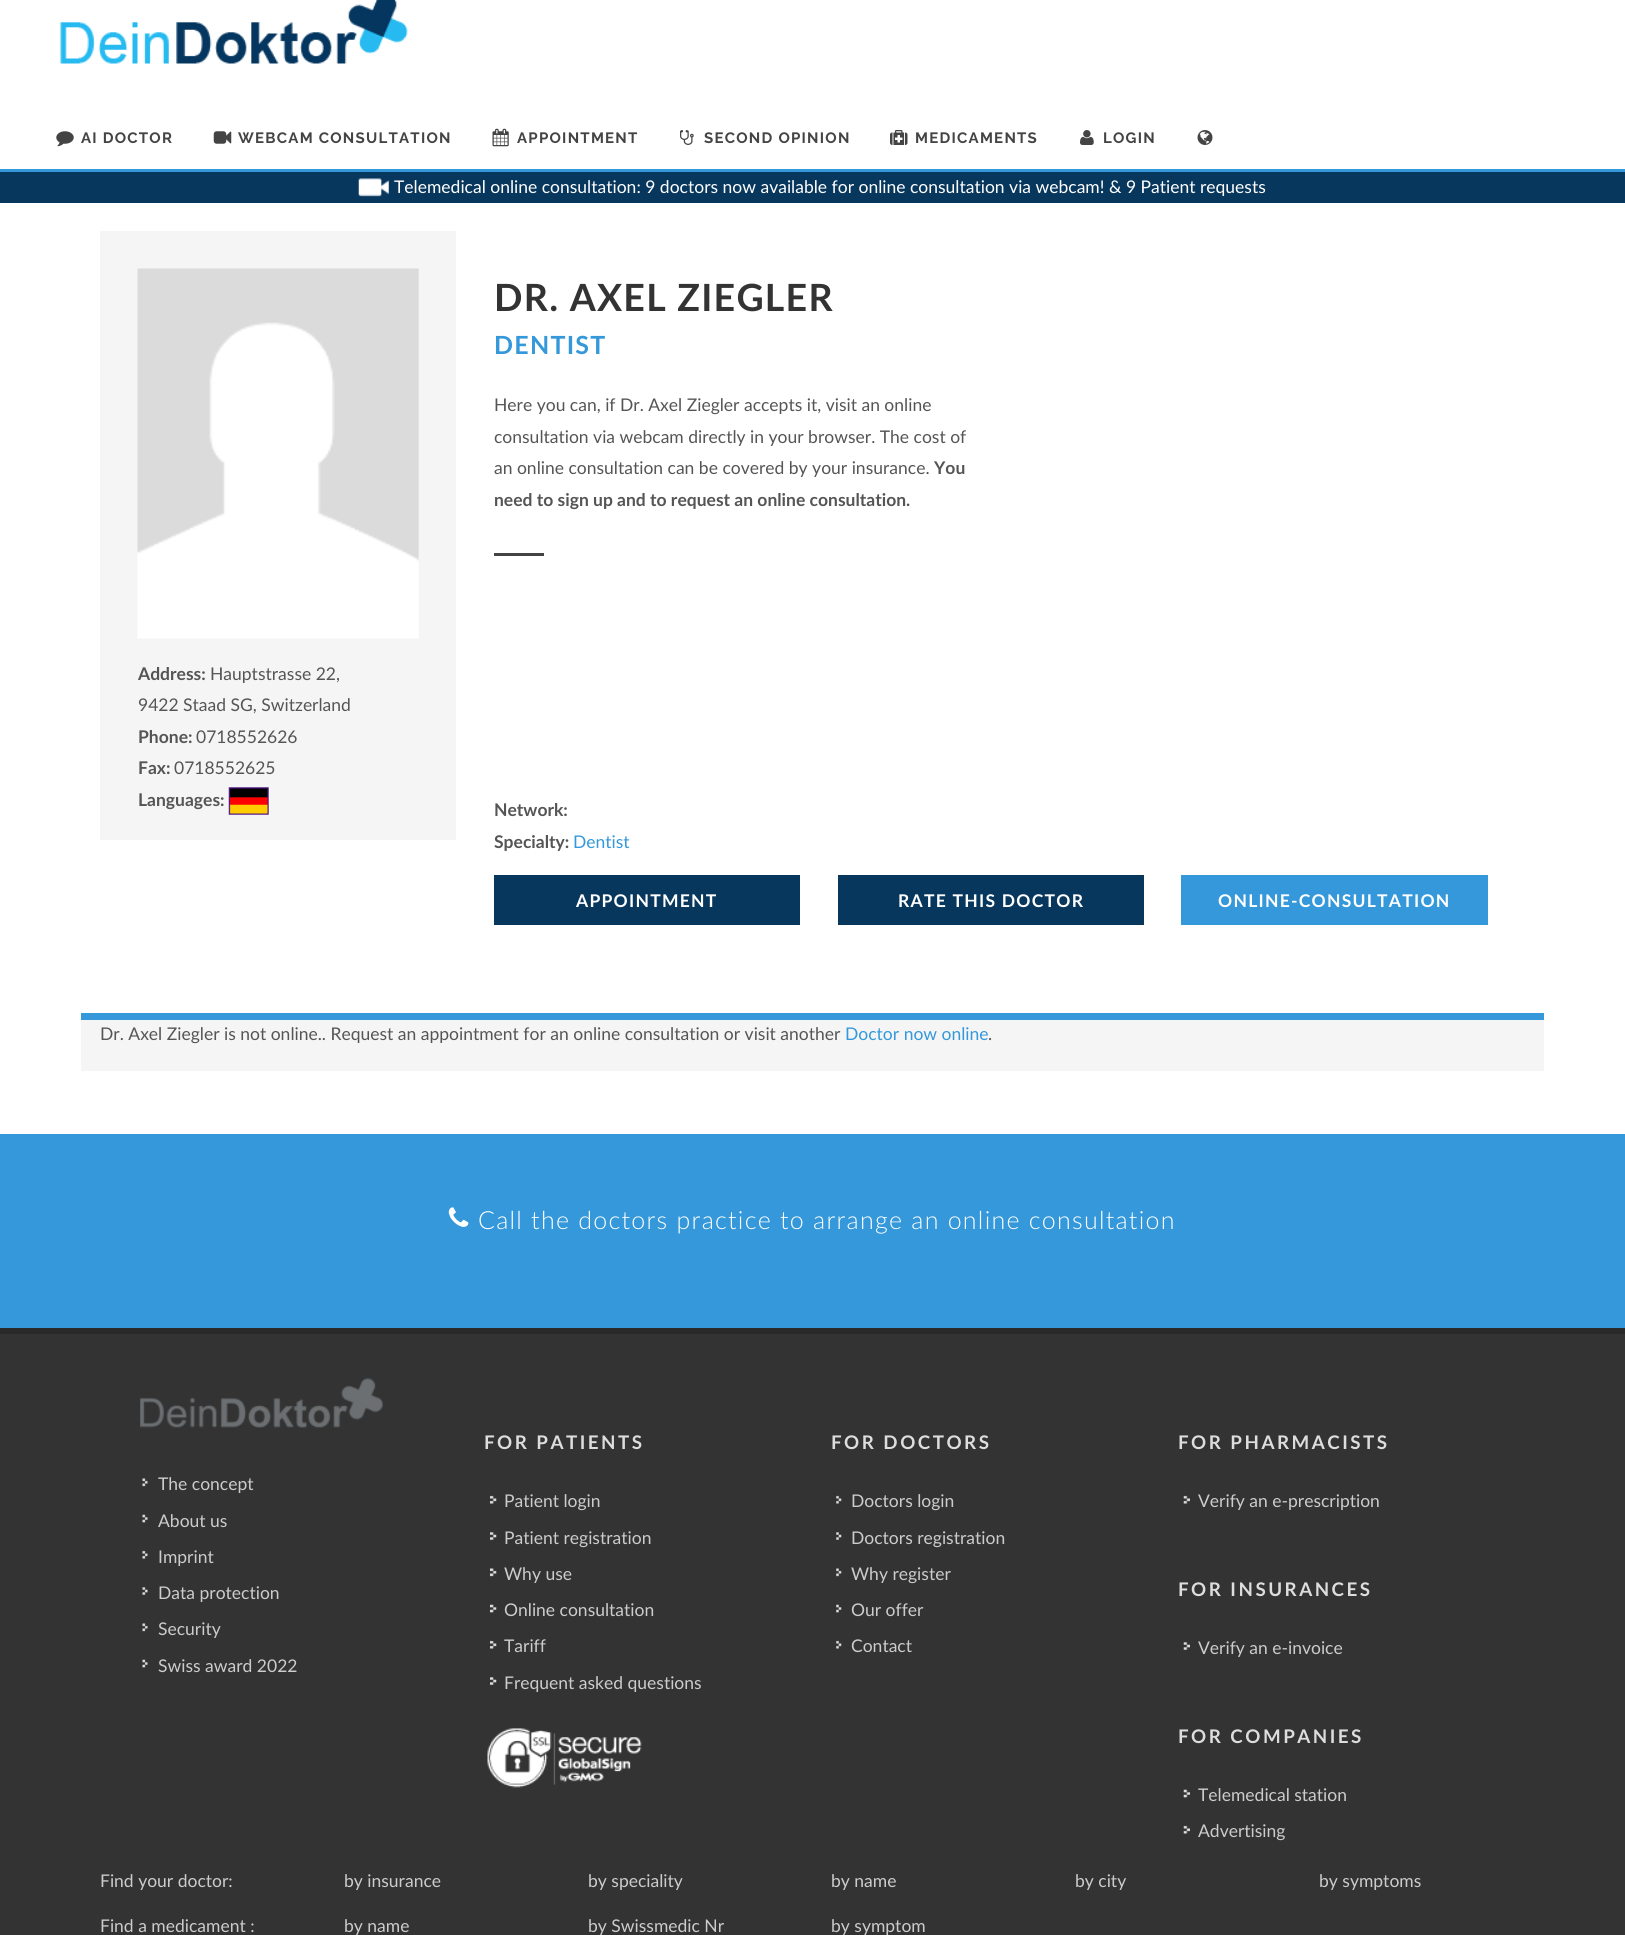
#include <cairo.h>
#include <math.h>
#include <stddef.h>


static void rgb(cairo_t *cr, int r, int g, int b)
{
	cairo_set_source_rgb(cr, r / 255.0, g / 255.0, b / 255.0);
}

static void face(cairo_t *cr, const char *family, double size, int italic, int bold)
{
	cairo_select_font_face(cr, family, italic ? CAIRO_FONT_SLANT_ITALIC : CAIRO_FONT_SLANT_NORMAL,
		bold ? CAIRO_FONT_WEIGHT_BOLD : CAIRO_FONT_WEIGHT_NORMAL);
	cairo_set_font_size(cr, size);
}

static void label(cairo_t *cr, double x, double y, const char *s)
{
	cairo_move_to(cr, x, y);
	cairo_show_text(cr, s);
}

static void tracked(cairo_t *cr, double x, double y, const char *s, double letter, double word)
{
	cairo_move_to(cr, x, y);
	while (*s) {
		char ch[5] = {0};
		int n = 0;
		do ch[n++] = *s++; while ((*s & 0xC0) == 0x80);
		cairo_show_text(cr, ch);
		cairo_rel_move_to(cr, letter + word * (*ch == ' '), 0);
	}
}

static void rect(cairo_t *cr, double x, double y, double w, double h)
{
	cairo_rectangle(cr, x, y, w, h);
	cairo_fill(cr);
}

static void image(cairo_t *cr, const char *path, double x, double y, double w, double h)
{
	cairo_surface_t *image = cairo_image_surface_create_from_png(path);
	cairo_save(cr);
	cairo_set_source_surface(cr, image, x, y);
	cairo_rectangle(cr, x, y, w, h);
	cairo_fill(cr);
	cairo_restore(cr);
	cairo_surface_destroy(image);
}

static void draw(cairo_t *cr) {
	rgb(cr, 255, 255, 255);
	cairo_paint(cr);
	image(cr, "image0.png", 59, 0, 349, 64);
	image(cr, "image1.png", 56, 131, 18, 16);
	face(cr, "Raleway", 15, 0, 1);
	rgb(cr, 68, 68, 68);
	tracked(cr, 81, 143, "AI DOCTOR", 1.25, 0);
	image(cr, "image2.png", 213, 131, 19, 13);
	tracked(cr, 238, 143, "WEBCAM CONSULTATION", 1.25, 0);
	image(cr, "image3.png", 492, 128, 17, 19);
	tracked(cr, 517, 143, "APPOINTMENT", 1.25, 0);
	image(cr, "image4.png", 680, 130, 14, 15);
	tracked(cr, 704, 143, "SECOND OPINION", 1.25, 0);
	image(cr, "image5.png", 890, 130, 18, 15);
	tracked(cr, 915, 143, "MEDICAMENTS", 1.25, 0);
	image(cr, "image6.png", 1080, 130, 14, 15);
	tracked(cr, 1103, 143, "LOGIN", 1.25, 0);
	image(cr, "image7.png", 1197, 130, 16, 15);
	rgb(cr, 8, 55, 94);
	rect(cr, 0, 172, 1625, 31);
	rgb(cr, 52, 152, 219);
	rect(cr, 0, 169, 1625, 3);
	image(cr, "image8.png", 358, 178, 31, 19);
	face(cr, "Lato", 17.5, 0, 0);
	rgb(cr, 255, 255, 255);
	label(cr, 394, 193, "Telemedical online consultation: 9 doctors now available for online consultation via webcam! & 9 Patient requests");
	rgb(cr, 245, 245, 245);
	rect(cr, 100, 231, 356, 609);
	image(cr, "image9.png", 137, 268, 282, 371);
	face(cr, "Lato", 17.5, 0, 1);
	rgb(cr, 85, 85, 85);
	label(cr, 138, 680, "Address:");
	face(cr, "Lato", 17.5, 0, 0);
	label(cr, 210, 680, "Hauptstrasse 22,");
	label(cr, 138, 711, "9422 Staad SG, Switzerland");
	face(cr, "Lato", 17.5, 0, 1);
	label(cr, 138, 743, "Phone:");
	face(cr, "Lato", 17.5, 0, 0);
	label(cr, 196, 743, "0718552626");
	face(cr, "Lato", 17.5, 0, 1);
	label(cr, 138, 774, "Fax:");
	face(cr, "Lato", 17.5, 0, 0);
	label(cr, 174, 774, "0718552625");
	face(cr, "Lato", 17.5, 0, 1);
	label(cr, 138, 806, "Languages:");
	image(cr, "image10.png", 228, 787, 42, 28);
	face(cr, "Lato", 37.5, 0, 1);
	rgb(cr, 51, 51, 51);
	tracked(cr, 494, 311, "DR. AXEL ZIEGLER", 1.25, 0);
	face(cr, "Lato", 25, 0, 1);
	rgb(cr, 52, 152, 219);
	tracked(cr, 494, 354, "DENTIST", 1.25, 0);
	face(cr, "Lato", 17.5, 0, 0);
	rgb(cr, 85, 85, 85);
	label(cr, 494, 411, "Here you can, if Dr. Axel Ziegler accepts it, visit an online");
	label(cr, 494, 443, "consultation via webcam directly in your browser. The cost of");
	label(cr, 494, 474, "an online consultation can be covered by your insurance.");
	face(cr, "Lato", 17.5, 0, 1);
	label(cr, 934, 474, "You");
	label(cr, 494, 506, "need to sign up and to request an online consultation.");
	rgb(cr, 68, 68, 68);
	rect(cr, 494, 553, 50, 3);
	rgb(cr, 85, 85, 85);
	label(cr, 494, 816, "Network:");
	label(cr, 494, 848, "Specialty:");
	face(cr, "Lato", 17.5, 0, 0);
	rgb(cr, 52, 152, 219);
	label(cr, 573, 848, "Dentist");
	rgb(cr, 8, 55, 94);
	rect(cr, 494, 875, 306, 50);
	face(cr, "Lato", 17.5, 0, 1);
	rgb(cr, 255, 255, 255);
	tracked(cr, 576, 907, "APPOINTMENT", 1.25, 0);
	rgb(cr, 8, 55, 94);
	rect(cr, 838, 875, 306, 50);
	rgb(cr, 255, 255, 255);
	tracked(cr, 898, 907, "RATE THIS DOCTOR", 1.25, 0);
	rgb(cr, 52, 152, 219);
	rect(cr, 1181, 875, 307, 50);
	rgb(cr, 255, 255, 255);
	tracked(cr, 1218, 907, "ONLINE-CONSULTATION", 1.25, 0);
	rgb(cr, 245, 245, 245);
	rect(cr, 81, 1020, 1463, 51);
	rgb(cr, 52, 152, 219);
	rect(cr, 81, 1013, 1463, 7);
	face(cr, "Lato", 17.5, 0, 0);
	rgb(cr, 85, 85, 85);
	label(cr, 100, 1040, "Dr. Axel Ziegler is not online.. Request an appointment for an online consultation or visit another");
	rgb(cr, 52, 152, 219);
	label(cr, 845, 1040, "Doctor now online");
	rgb(cr, 85, 85, 85);
	label(cr, 988, 1040, ".");
	rgb(cr, 52, 152, 219);
	rect(cr, 0, 1134, 1625, 194);
	image(cr, "image11.png", 448, 1207, 21, 20);
	face(cr, "Lato Light", 25, 0, 0);
	rgb(cr, 255, 255, 255);
	tracked(cr, 478, 1229, "Call the doctors practice to arrange an online consultation", 1.25, 0);
	rgb(cr, 51, 51, 51);
	rect(cr, 0, 1334, 1625, 601);
	rgb(cr, 41, 41, 41);
	rect(cr, 0, 1328, 1625, 6);
	image(cr, "image12.png", 140, 1378, 243, 50);
	image(cr, "image13.png", 142, 1478, 6, 9);
	face(cr, "Lato", 17.5, 0, 0);
	rgb(cr, 204, 204, 204);
	label(cr, 158, 1490, "The concept");
	image(cr, "image14.png", 142, 1514, 6, 9);
	label(cr, 158, 1527, "About us");
	image(cr, "image15.png", 142, 1550, 6, 9);
	label(cr, 158, 1563, "Imprint");
	image(cr, "image16.png", 142, 1587, 6, 8);
	label(cr, 158, 1599, "Data protection");
	image(cr, "image13.png", 142, 1623, 6, 9);
	label(cr, 158, 1635, "Security");
	image(cr, "image14.png", 142, 1659, 6, 9);
	label(cr, 158, 1672, "Swiss award 2022");
	face(cr, "Lato", 18.75, 0, 1);
	rgb(cr, 221, 221, 221);
	tracked(cr, 484, 1449, "FOR PATIENTS", 2.5, 0);
	image(cr, "image17.png", 490, 1495, 7, 9);
	face(cr, "Lato", 17.5, 0, 0);
	rgb(cr, 204, 204, 204);
	label(cr, 504, 1507, "Patient login");
	image(cr, "image18.png", 490, 1532, 7, 8);
	label(cr, 504, 1544, "Patient registration");
	image(cr, "image19.png", 490, 1568, 7, 9);
	label(cr, 504, 1580, "Why use");
	image(cr, "image20.png", 490, 1604, 7, 9);
	label(cr, 504, 1616, "Online consultation");
	image(cr, "image17.png", 490, 1640, 7, 9);
	label(cr, 504, 1652, "Tariff");
	image(cr, "image18.png", 490, 1677, 7, 8);
	label(cr, 504, 1689, "Frequent asked questions");
	image(cr, "image21.png", 487, 1728, 155, 60);
	face(cr, "Lato", 18.75, 0, 1);
	rgb(cr, 221, 221, 221);
	tracked(cr, 831, 1449, "FOR DOCTORS", 2.5, 0);
	image(cr, "image22.png", 836, 1495, 6, 9);
	face(cr, "Lato", 17.5, 0, 0);
	rgb(cr, 204, 204, 204);
	label(cr, 851, 1507, "Doctors login");
	image(cr, "image23.png", 836, 1532, 6, 8);
	label(cr, 851, 1544, "Doctors registration");
	image(cr, "image24.png", 836, 1568, 6, 9);
	label(cr, 851, 1580, "Why register");
	image(cr, "image25.png", 836, 1604, 6, 9);
	label(cr, 851, 1616, "Our offer");
	image(cr, "image22.png", 836, 1640, 6, 9);
	label(cr, 851, 1652, "Contact");
	face(cr, "Lato", 18.75, 0, 1);
	rgb(cr, 221, 221, 221);
	tracked(cr, 1178, 1449, "FOR PHARMACISTS", 2.5, 0);
	image(cr, "image26.png", 1183, 1495, 7, 9);
	face(cr, "Lato", 17.5, 0, 0);
	rgb(cr, 204, 204, 204);
	label(cr, 1198, 1507, "Verify an e-prescription");
	face(cr, "Lato", 18.75, 0, 1);
	rgb(cr, 221, 221, 221);
	tracked(cr, 1178, 1596, "FOR INSURANCES", 2.5, 0);
	image(cr, "image27.png", 1183, 1642, 7, 8);
	face(cr, "Lato", 17.5, 0, 0);
	rgb(cr, 204, 204, 204);
	label(cr, 1198, 1654, "Verify an e-invoice");
	face(cr, "Lato", 18.75, 0, 1);
	rgb(cr, 221, 221, 221);
	tracked(cr, 1178, 1743, "FOR COMPANIES", 2.5, 0);
	image(cr, "image28.png", 1183, 1789, 7, 9);
	face(cr, "Lato", 17.5, 0, 0);
	rgb(cr, 204, 204, 204);
	label(cr, 1198, 1801, "Telemedical station");
	image(cr, "image26.png", 1183, 1825, 7, 9);
	label(cr, 1198, 1837, "Advertising");
	label(cr, 100, 1887, "Find your doctor:");
	label(cr, 344, 1887, "by insurance");
	label(cr, 588, 1887, "by speciality");
	label(cr, 831, 1887, "by name");
	label(cr, 1075, 1887, "by city");
	label(cr, 1319, 1887, "by symptoms");
	label(cr, 100, 1932, "Find a medicament :");
	label(cr, 344, 1932, "by name");
	label(cr, 588, 1932, "by Swissmedic Nr");
	label(cr, 831, 1932, "by symptom");
}

int main(void) {
	cairo_surface_t *surface = cairo_image_surface_create(CAIRO_FORMAT_RGB24, 1625, 1935);
	cairo_t *cr = cairo_create(surface);
	cairo_font_options_t *options = cairo_font_options_create();
	cairo_font_options_set_hint_metrics(options, CAIRO_HINT_METRICS_OFF);
	cairo_font_options_set_hint_style(options, CAIRO_HINT_STYLE_NONE);
	cairo_set_font_options(cr, options);
	cairo_set_miter_limit(cr, 4);
	draw(cr);
	cairo_surface_write_to_png(surface, "render.png");
	cairo_font_options_destroy(options);
	cairo_destroy(cr);
	cairo_surface_destroy(surface);
	return 0;
}
